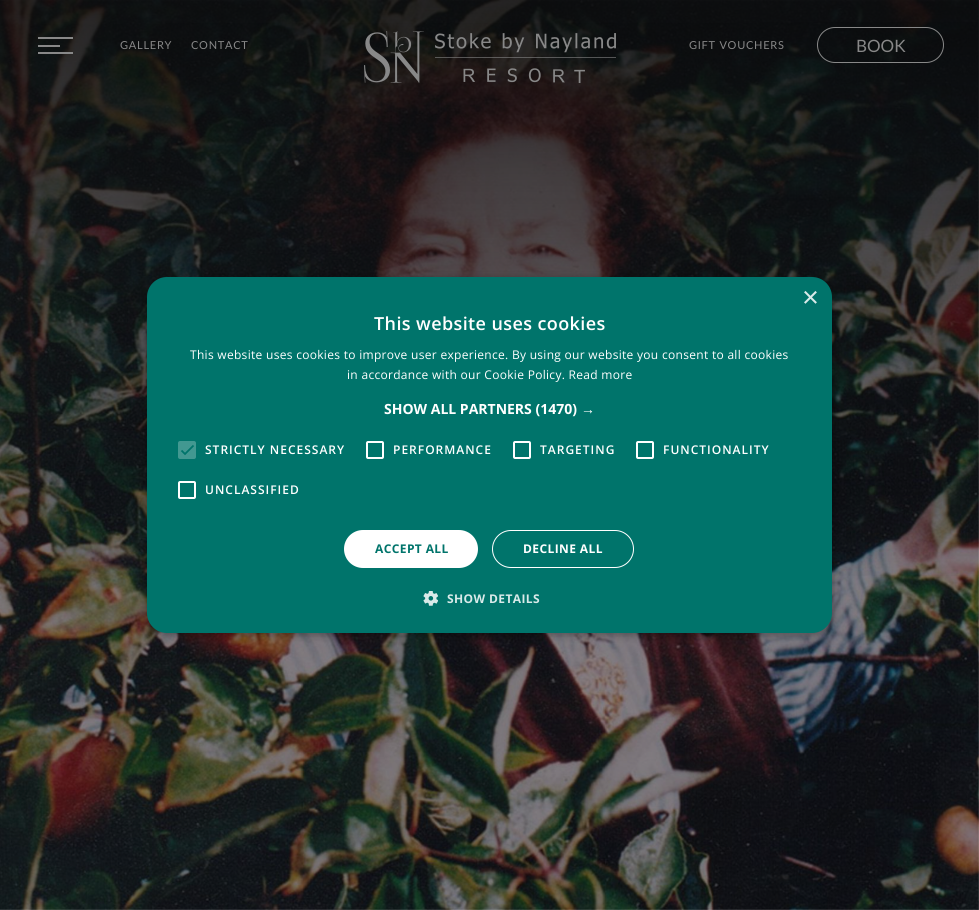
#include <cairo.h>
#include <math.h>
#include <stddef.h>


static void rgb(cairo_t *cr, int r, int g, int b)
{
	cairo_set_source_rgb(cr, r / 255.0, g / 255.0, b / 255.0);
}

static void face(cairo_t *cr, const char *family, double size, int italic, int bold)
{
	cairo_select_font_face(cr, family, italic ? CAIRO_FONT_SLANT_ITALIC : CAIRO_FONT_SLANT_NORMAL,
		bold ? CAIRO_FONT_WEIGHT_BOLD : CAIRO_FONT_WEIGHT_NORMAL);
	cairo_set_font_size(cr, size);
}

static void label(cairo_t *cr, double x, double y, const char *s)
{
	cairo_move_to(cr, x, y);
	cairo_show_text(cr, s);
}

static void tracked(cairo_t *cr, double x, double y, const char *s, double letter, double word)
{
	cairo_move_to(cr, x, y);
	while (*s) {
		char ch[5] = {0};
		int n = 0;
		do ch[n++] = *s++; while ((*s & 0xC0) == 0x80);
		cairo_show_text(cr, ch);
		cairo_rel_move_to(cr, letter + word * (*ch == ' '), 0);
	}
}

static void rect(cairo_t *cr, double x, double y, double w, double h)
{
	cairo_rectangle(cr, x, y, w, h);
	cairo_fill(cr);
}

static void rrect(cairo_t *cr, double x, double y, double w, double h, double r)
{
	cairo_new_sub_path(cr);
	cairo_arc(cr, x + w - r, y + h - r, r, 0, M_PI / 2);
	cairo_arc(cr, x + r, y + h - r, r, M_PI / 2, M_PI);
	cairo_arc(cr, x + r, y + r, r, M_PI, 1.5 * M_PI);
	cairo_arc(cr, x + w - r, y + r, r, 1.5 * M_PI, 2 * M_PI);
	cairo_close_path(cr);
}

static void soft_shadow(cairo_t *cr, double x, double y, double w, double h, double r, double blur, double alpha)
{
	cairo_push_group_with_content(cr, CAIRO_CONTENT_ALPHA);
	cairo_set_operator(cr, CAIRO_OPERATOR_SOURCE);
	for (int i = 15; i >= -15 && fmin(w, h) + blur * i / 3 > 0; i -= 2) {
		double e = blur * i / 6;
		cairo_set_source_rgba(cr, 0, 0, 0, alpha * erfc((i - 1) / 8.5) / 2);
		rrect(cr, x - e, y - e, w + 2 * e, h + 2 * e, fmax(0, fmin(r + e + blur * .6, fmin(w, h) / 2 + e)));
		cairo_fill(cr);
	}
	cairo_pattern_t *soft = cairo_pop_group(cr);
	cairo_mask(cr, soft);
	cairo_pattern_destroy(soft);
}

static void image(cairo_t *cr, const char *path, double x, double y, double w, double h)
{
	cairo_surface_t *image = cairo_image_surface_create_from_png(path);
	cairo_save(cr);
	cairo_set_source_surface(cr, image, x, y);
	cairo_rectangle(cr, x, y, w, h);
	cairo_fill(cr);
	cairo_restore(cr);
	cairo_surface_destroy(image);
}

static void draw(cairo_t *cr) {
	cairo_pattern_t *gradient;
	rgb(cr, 255, 255, 255);
	cairo_paint(cr);
	image(cr, "image0.png", 0, 0, 979, 910);
	gradient = cairo_pattern_create_linear(489, 0, 490, 592);
	cairo_pattern_add_color_stop_rgba(gradient, 0.01, 0.035, 0.035, 0.035, 0.75);
	cairo_pattern_add_color_stop_rgba(gradient, 1, 0.035, 0.035, 0.035, 0);
	cairo_set_source(cr, gradient);
	cairo_pattern_destroy(gradient);
	rect(cr, 0, 0, 979, 576);
	rgb(cr, 136, 136, 136);
	rect(cr, 38, 37, 35, 2);
	rect(cr, 38, 45, 22, 2);
	rect(cr, 38, 52, 35, 2);
	face(cr, "Lato", 11, 0, 0);
	tracked(cr, 120, 49, "GALLERY", 0.75, 0);
	tracked(cr, 191, 49, "CONTACT", 0.75, 0);
	image(cr, "image1.png", 364, 31, 252, 52);
	tracked(cr, 689, 49, "GIFT VOUCHERS", 0.75, 0);
	rrect(cr, 817.5, 27.5, 126, 35, 17.5);
	cairo_set_line_width(cr, 1);
	cairo_stroke(cr);
	face(cr, "Lato", 17, 0, 0);
	label(cr, 856, 52, "BOOK");
	rgb(cr, 0, 0, 0);
	soft_shadow(cr, 148, 279, 685, 356, 20, 4, 0.35);
	rgb(cr, 0, 116, 107);
	rrect(cr, 147, 277, 685, 356, 20);
	cairo_fill(cr);
	face(cr, "Liberation Sans", 29, 0, 0);
	rgb(cr, 217, 234, 233);
	label(cr, 802, 307, "×");
	face(cr, "Open Sans SemiBold", 18, 0, 0);
	rgb(cr, 255, 255, 255);
	tracked(cr, 374, 330, "This website uses cookies", 0.4, 0);
	face(cr, "Open Sans", 12, 0, 0);
	tracked(cr, 190, 359, "This website uses cookies to improve user experience. By using our website you consent to all cookies", 0.3, 0);
	tracked(cr, 347, 379, "in accordance with our Cookie Policy. Read more", 0.3, 0);
	face(cr, "Open Sans", 14, 0, 1);
	label(cr, 384, 414, "SHOW ALL PARTNERS (1470)");
	face(cr, "Liberation Sans", 14, 0, 1);
	label(cr, 581, 414, "→");
	rgb(cr, 66, 152, 145);
	rrect(cr, 178, 441, 18, 18, 2);
	cairo_fill(cr);
	cairo_new_path(cr);
	cairo_move_to(cr, 181.5, 450.5);
	cairo_line_to(cr, 185, 454);
	cairo_line_to(cr, 193.5, 445.5);
	rgb(cr, 0, 116, 107);
	cairo_set_line_width(cr, 1.8);
	cairo_stroke(cr);
	face(cr, "Open Sans SemiBold", 12, 0, 0);
	rgb(cr, 255, 255, 255);
	tracked(cr, 205, 454, "STRICTLY NECESSARY", 1, 0);
	rrect(cr, 367, 442, 16, 16, 1);
	cairo_set_line_width(cr, 2);
	cairo_stroke(cr);
	tracked(cr, 393, 454, "PERFORMANCE", 1, 0);
	rrect(cr, 514, 442, 16, 16, 1);
	cairo_stroke(cr);
	tracked(cr, 540, 454, "TARGETING", 1, 0);
	rrect(cr, 637, 442, 16, 16, 1);
	cairo_stroke(cr);
	tracked(cr, 663, 454, "FUNCTIONALITY", 1, 0);
	rrect(cr, 179, 482, 16, 16, 1);
	cairo_stroke(cr);
	tracked(cr, 205, 494, "UNCLASSIFIED", 1, 0);
	rrect(cr, 344, 530, 134, 38, 19);
	cairo_fill(cr);
	face(cr, "Open Sans", 12, 0, 1);
	rgb(cr, 0, 116, 107);
	tracked(cr, 375, 553, "ACCEPT ALL", 0.4, 0);
	rrect(cr, 492.5, 530.5, 141, 37, 18.5);
	rgb(cr, 255, 255, 255);
	cairo_set_line_width(cr, 1);
	cairo_stroke(cr);
	tracked(cr, 523, 553, "DECLINE ALL", 0.4, 0);
	image(cr, "image2.png", 423, 591, 15, 15);
	rgb(cr, 217, 234, 233);
	tracked(cr, 447, 603, "SHOW DETAILS", 0.4, 0);
}

int main(void) {
	cairo_surface_t *surface = cairo_image_surface_create(CAIRO_FORMAT_RGB24, 979, 910);
	cairo_t *cr = cairo_create(surface);
	cairo_font_options_t *options = cairo_font_options_create();
	cairo_font_options_set_hint_metrics(options, CAIRO_HINT_METRICS_OFF);
	cairo_font_options_set_hint_style(options, CAIRO_HINT_STYLE_NONE);
	cairo_set_font_options(cr, options);
	cairo_set_miter_limit(cr, 4);
	draw(cr);
	cairo_surface_write_to_png(surface, "render.png");
	cairo_font_options_destroy(options);
	cairo_destroy(cr);
	cairo_surface_destroy(surface);
	return 0;
}
